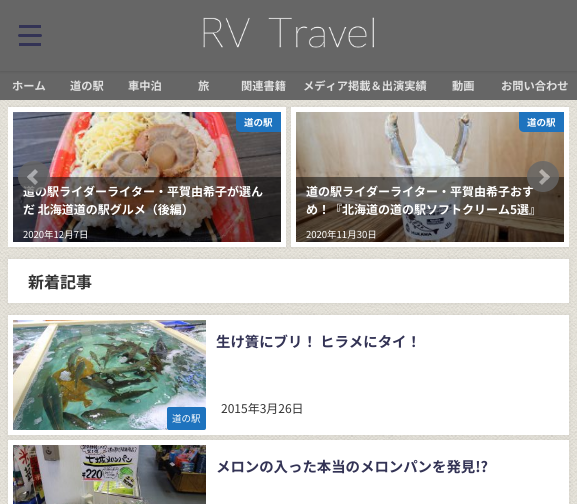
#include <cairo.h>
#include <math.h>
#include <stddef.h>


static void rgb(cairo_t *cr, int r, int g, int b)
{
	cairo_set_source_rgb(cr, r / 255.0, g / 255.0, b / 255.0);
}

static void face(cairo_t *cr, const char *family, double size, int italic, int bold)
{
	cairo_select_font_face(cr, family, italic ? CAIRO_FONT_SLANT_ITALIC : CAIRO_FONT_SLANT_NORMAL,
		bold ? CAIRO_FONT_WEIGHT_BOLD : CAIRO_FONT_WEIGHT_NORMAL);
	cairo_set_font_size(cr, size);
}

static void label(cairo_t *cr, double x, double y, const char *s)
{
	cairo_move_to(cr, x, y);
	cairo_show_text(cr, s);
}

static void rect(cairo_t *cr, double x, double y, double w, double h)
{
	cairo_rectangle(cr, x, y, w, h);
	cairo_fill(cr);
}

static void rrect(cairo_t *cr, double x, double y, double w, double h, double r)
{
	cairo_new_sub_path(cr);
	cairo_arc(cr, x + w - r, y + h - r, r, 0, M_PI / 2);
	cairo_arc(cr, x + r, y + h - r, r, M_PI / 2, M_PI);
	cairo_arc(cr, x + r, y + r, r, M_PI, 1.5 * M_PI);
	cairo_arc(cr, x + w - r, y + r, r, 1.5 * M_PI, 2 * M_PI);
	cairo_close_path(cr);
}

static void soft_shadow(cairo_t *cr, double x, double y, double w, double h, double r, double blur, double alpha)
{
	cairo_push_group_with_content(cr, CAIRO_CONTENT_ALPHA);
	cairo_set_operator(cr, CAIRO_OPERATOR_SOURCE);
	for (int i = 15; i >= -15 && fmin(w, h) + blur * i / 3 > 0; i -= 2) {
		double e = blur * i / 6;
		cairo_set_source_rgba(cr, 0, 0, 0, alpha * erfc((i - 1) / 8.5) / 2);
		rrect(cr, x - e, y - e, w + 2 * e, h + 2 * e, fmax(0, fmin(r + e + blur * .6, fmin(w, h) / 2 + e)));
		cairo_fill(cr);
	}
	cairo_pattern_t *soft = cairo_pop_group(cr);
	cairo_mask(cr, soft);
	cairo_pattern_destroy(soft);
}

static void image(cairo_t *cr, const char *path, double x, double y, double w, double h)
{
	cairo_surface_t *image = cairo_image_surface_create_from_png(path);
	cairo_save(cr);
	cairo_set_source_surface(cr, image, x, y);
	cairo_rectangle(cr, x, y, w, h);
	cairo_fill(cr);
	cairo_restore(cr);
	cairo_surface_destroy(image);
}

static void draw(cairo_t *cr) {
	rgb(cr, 255, 255, 255);
	cairo_paint(cr);
	image(cr, "image0.png", 0, 100, 577, 404);
	rgb(cr, 102, 102, 102);
	rect(cr, 0, 71, 577, 29);
	rgb(cr, 0, 0, 0);
	soft_shadow(cr, 0, 0, 577, 71, 0, 2, 0.2);
	rgb(cr, 102, 102, 102);
	rect(cr, 0, 0, 577, 71);
	rgb(cr, 51, 51, 85);
	rect(cr, 19, 25, 22, 3);
	rrect(cr, 18, 34, 24, 3, 1.5);
	cairo_fill(cr);
	rect(cr, 19, 43, 22, 3);
	image(cr, "image1.png", 203, 17, 171, 31);
	face(cr, "Noto Sans JP", 11.25, 0, 1);
	rgb(cr, 224, 224, 224);
	label(cr, 12, 90, "ホーム");
	label(cr, 70, 90, "道の駅");
	label(cr, 128, 90, "車中泊");
	label(cr, 198, 90, "旅");
	label(cr, 241, 90, "関連書籍");
	label(cr, 303, 90, "メディア掲載＆出演実績");
	label(cr, 452, 90, "動画");
	label(cr, 501, 90, "お問い合わせ");
	cairo_save(cr);
	cairo_rectangle(cr, 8, 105, 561, 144);
	cairo_clip(cr);
	rgb(cr, 150, 150, 150);
	soft_shadow(cr, 8, 107, 278, 140, 0, 2.5, 0.2);
	cairo_restore(cr);
	rgb(cr, 255, 255, 255);
	rect(cr, 8, 107, 278, 140);
	image(cr, "image2.png", 13, 112, 268, 130);
	rgb(cr, 30, 115, 190);
	cairo_new_path(cr);
	cairo_move_to(cr, 236, 112);
	cairo_line_to(cr, 281, 112);
	cairo_line_to(cr, 281, 132);
	cairo_line_to(cr, 241, 132);
	cairo_curve_to(cr, 238, 132, 236, 130, 236, 127);
	cairo_close_path(cr);
	cairo_fill(cr);
	face(cr, "Noto Sans JP", 9.5, 0, 1);
	rgb(cr, 255, 255, 255);
	label(cr, 244, 126, "道の駅");
	cairo_set_source_rgba(cr, 0, 0, 0, 0.5);
	rect(cr, 13, 177, 268, 65);
	face(cr, "Noto Sans JP", 12, 0, 1);
	rgb(cr, 255, 255, 255);
	label(cr, 23, 196, "道の駅ライダーライター・平賀由希子が選ん");
	label(cr, 23, 214, "だ 北海道道の駅グルメ（後編）");
	face(cr, "Noto Sans JP", 9.5, 0, 0);
	label(cr, 23, 238, "2020年12月7日");
	cairo_save(cr);
	cairo_rectangle(cr, 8, 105, 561, 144);
	cairo_clip(cr);
	rgb(cr, 150, 150, 150);
	soft_shadow(cr, 291, 107, 278, 140, 0, 2.5, 0.2);
	cairo_restore(cr);
	rect(cr, 291, 107, 278, 140);
	image(cr, "image3.png", 296, 112, 268, 130);
	rgb(cr, 30, 115, 190);
	cairo_new_path(cr);
	cairo_move_to(cr, 519, 112);
	cairo_line_to(cr, 564, 112);
	cairo_line_to(cr, 564, 132);
	cairo_line_to(cr, 524, 132);
	cairo_curve_to(cr, 521, 132, 519, 130, 519, 127);
	cairo_close_path(cr);
	cairo_fill(cr);
	face(cr, "Noto Sans JP", 9.5, 0, 1);
	rgb(cr, 255, 255, 255);
	label(cr, 527, 126, "道の駅");
	cairo_set_source_rgba(cr, 0, 0, 0, 0.5);
	rect(cr, 296, 177, 268, 65);
	face(cr, "Noto Sans JP", 12, 0, 1);
	rgb(cr, 255, 255, 255);
	label(cr, 306, 196, "道の駅ライダーライター・平賀由希子おす");
	label(cr, 306, 214, "め！『北海道の道の駅ソフトクリーム5選』");
	face(cr, "Noto Sans JP", 9.5, 0, 0);
	label(cr, 306, 238, "2020年11月30日");
	image(cr, "image4.png", 18, 161, 32, 31);
	image(cr, "image5.png", 527, 161, 32, 31);
	rgb(cr, 150, 150, 150);
	soft_shadow(cr, 8, 259, 561, 44, 0, 2.5, 0.2);
	rgb(cr, 255, 255, 255);
	rect(cr, 8, 259, 561, 44);
	face(cr, "Noto Sans JP", 16, 0, 1);
	rgb(cr, 51, 51, 51);
	label(cr, 28, 288, "新着記事");
	rgb(cr, 150, 150, 150);
	soft_shadow(cr, 8, 315, 561, 120, 0, 2.5, 0.2);
	rgb(cr, 255, 255, 255);
	rect(cr, 8, 315, 561, 120);
	face(cr, "Noto Sans JP", 14.4, 0, 1);
	rgb(cr, 51, 51, 85);
	label(cr, 216, 347, "生け簀にブリ！ ヒラメにタイ！");
	face(cr, "Noto Sans JP", 12, 0, 0);
	rgb(cr, 51, 51, 51);
	label(cr, 221, 413, "2015年3月26日");
	image(cr, "image6.png", 13, 320, 193, 110);
	rgb(cr, 30, 115, 190);
	rrect(cr, 167, 407, 39, 23, 2);
	cairo_fill(cr);
	face(cr, "Noto Sans JP", 9.5, 0, 0);
	rgb(cr, 255, 255, 255);
	label(cr, 172, 422, "道の駅");
	rgb(cr, 150, 150, 150);
	soft_shadow(cr, 8, 440, 561, 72, 0, 2.5, 0.2);
	rgb(cr, 255, 255, 255);
	rect(cr, 8, 440, 561, 64);
	image(cr, "image7.png", 13, 445, 193, 59);
	face(cr, "Noto Sans JP", 14.4, 0, 1);
	rgb(cr, 51, 51, 85);
	label(cr, 216, 472, "メロンの入った本当のメロンパンを発見!?");
}

int main(void) {
	cairo_surface_t *surface = cairo_image_surface_create(CAIRO_FORMAT_RGB24, 577, 504);
	cairo_t *cr = cairo_create(surface);
	cairo_font_options_t *options = cairo_font_options_create();
	cairo_font_options_set_hint_metrics(options, CAIRO_HINT_METRICS_OFF);
	cairo_font_options_set_hint_style(options, CAIRO_HINT_STYLE_NONE);
	cairo_set_font_options(cr, options);
	cairo_set_miter_limit(cr, 4);
	draw(cr);
	cairo_surface_write_to_png(surface, "render.png");
	cairo_font_options_destroy(options);
	cairo_destroy(cr);
	cairo_surface_destroy(surface);
	return 0;
}
